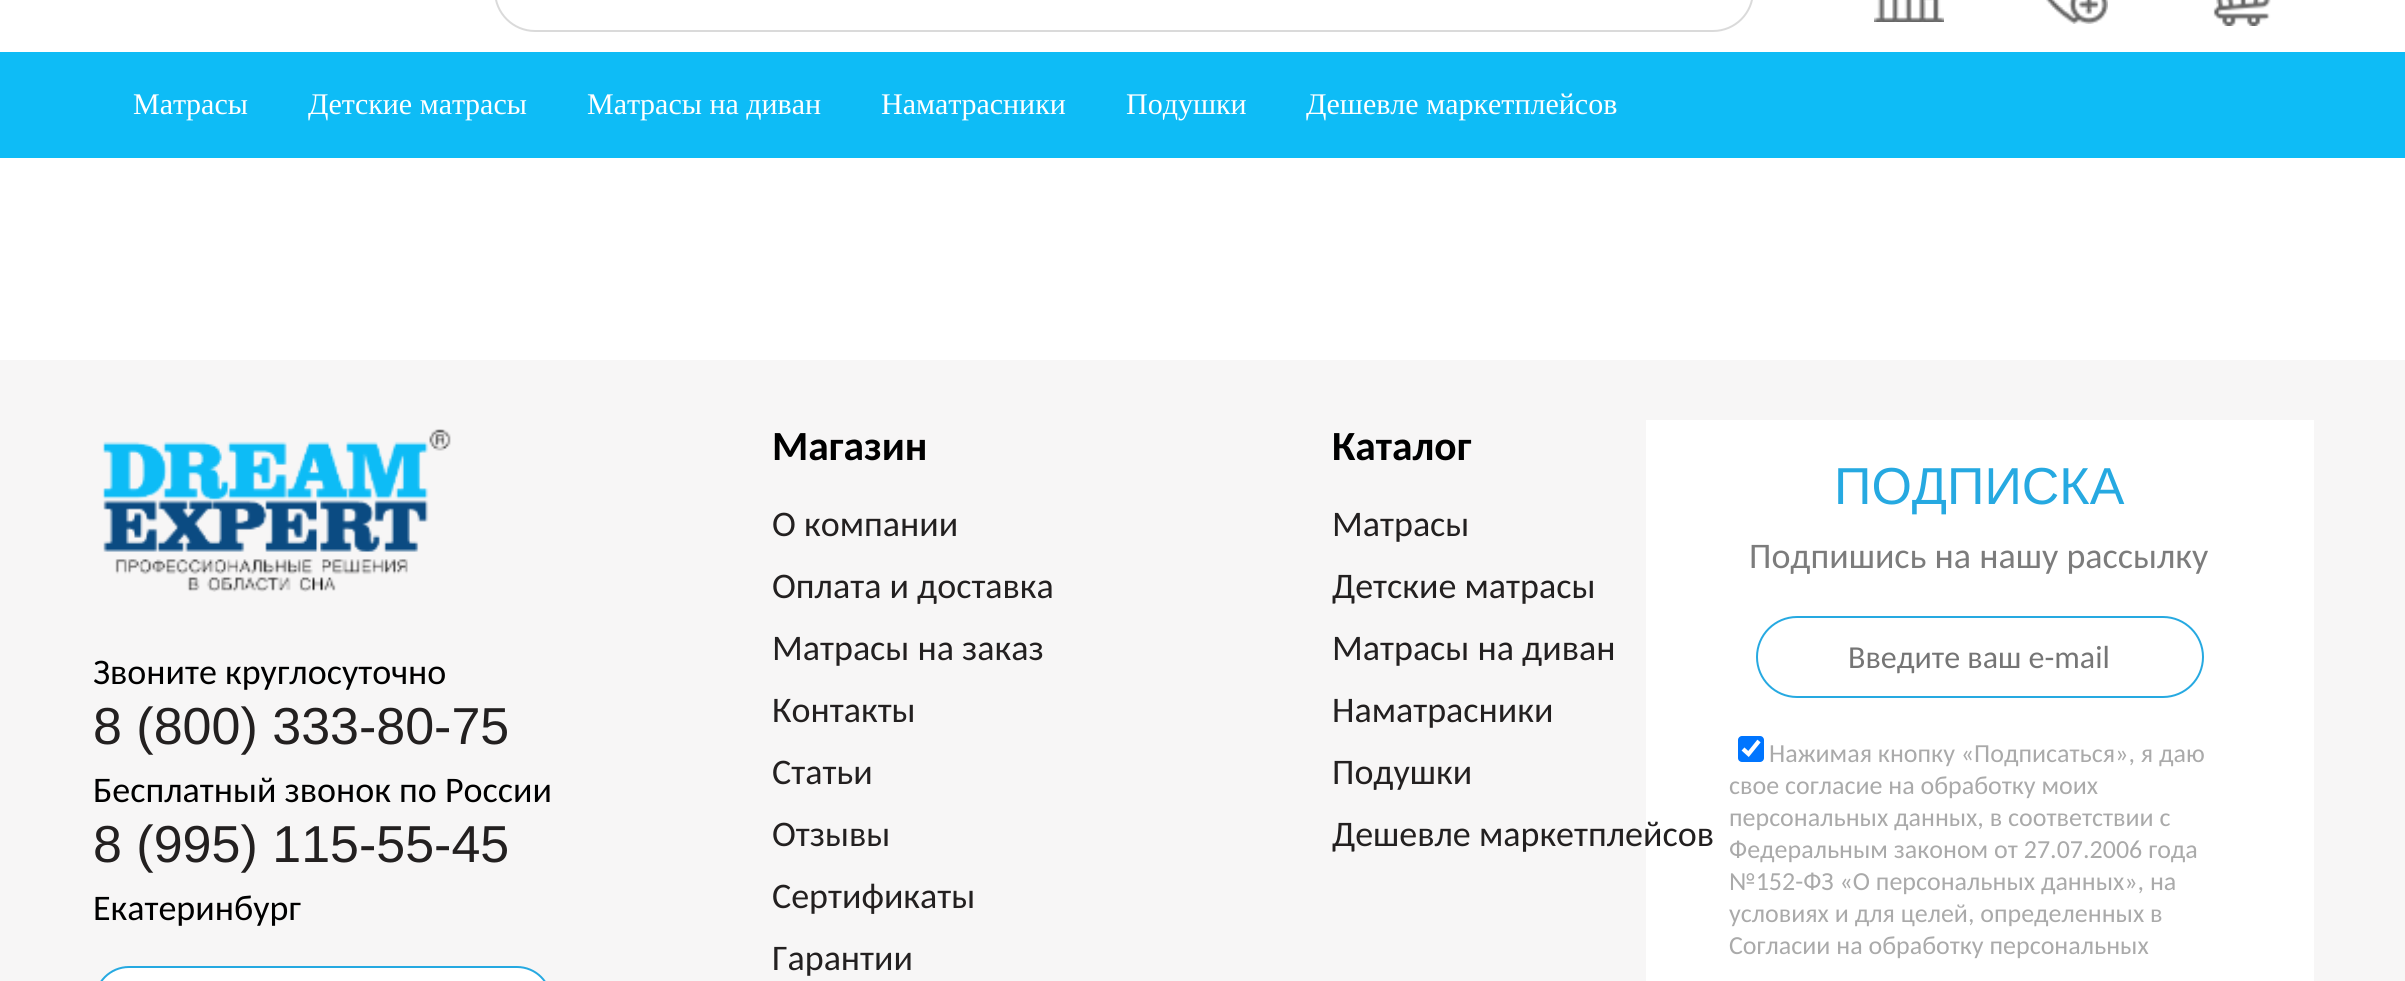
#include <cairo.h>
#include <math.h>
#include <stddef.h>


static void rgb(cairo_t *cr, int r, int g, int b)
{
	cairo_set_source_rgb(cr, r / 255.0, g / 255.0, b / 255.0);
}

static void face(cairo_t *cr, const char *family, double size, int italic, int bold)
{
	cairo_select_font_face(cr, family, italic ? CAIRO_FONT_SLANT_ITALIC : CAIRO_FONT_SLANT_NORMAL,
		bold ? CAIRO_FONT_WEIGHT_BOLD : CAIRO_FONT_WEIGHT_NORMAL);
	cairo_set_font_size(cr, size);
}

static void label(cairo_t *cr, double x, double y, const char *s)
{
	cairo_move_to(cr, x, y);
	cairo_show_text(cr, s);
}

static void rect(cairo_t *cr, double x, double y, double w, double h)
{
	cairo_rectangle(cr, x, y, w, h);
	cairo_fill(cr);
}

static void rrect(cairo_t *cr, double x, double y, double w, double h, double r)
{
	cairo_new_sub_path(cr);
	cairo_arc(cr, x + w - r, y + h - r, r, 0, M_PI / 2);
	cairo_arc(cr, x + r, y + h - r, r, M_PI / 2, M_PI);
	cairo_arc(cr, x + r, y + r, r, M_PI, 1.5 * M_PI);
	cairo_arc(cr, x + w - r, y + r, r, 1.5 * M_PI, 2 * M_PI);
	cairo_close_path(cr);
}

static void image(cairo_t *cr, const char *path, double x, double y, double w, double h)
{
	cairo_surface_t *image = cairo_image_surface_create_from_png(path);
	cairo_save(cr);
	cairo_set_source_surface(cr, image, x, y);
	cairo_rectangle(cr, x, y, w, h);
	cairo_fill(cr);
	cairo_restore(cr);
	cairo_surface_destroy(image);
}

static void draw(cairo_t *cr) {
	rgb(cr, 255, 255, 255);
	cairo_paint(cr);
	rrect(cr, 495, -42, 1258, 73, 40);
	rgb(cr, 218, 218, 218);
	cairo_stroke(cr);
	image(cr, "image0.png", 1874, 0, 70, 22);
	image(cr, "image1.png", 2046, 0, 62, 24);
	image(cr, "image2.png", 2213, 0, 58, 26);
	rgb(cr, 14, 188, 246);
	rect(cr, 0, 52, 2405, 106);
	face(cr, "Liberation Serif", 30, 0, 0);
	rgb(cr, 255, 255, 255);
	label(cr, 133, 114, "Матрасы");
	label(cr, 308, 114, "Детские матрасы");
	label(cr, 587, 114, "Матрасы на диван");
	label(cr, 881, 114, "Наматрасники");
	label(cr, 1126, 114, "Подушки");
	label(cr, 1306, 114, "Дешевле маркетплейсов");
	rgb(cr, 247, 246, 246);
	rect(cr, 0, 360, 2405, 621);
	image(cr, "image3.png", 102, 429, 349, 163);
	face(cr, "Carlito", 36, 0, 0);
	rgb(cr, 0, 0, 0);
	label(cr, 93, 684, "Звоните круглосуточно");
	face(cr, "Liberation Sans", 52, 0, 0);
	rgb(cr, 35, 32, 32);
	label(cr, 93, 744, "8 (800) 333-80-75");
	face(cr, "Carlito", 36, 0, 0);
	rgb(cr, 0, 0, 0);
	label(cr, 93, 802, "Бесплатный звонок по России");
	face(cr, "Liberation Sans", 52, 0, 0);
	rgb(cr, 35, 32, 32);
	label(cr, 93, 862, "8 (995) 115-55-45");
	face(cr, "Carlito", 36, 0, 0);
	rgb(cr, 0, 0, 0);
	label(cr, 93, 920, "Екатеринбург");
	rgb(cr, 255, 255, 255);
	rrect(cr, 95, 967, 456, 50, 34);
	cairo_fill_preserve(cr);
	rgb(cr, 38, 169, 225);
	cairo_stroke(cr);
	face(cr, "Carlito", 41.5, 0, 1);
	rgb(cr, 0, 0, 0);
	label(cr, 772, 460, "Магазин");
	face(cr, "Carlito", 36, 0, 0);
	rgb(cr, 35, 32, 32);
	label(cr, 772, 536, "О компании");
	label(cr, 772, 598, "Оплата и доставка");
	label(cr, 772, 660, "Матрасы на заказ");
	label(cr, 772, 722, "Контакты");
	label(cr, 772, 784, "Статьи");
	label(cr, 772, 846, "Отзывы");
	label(cr, 772, 908, "Сертификаты");
	label(cr, 772, 970, "Гарантии");
	face(cr, "Carlito", 41.5, 0, 1);
	rgb(cr, 0, 0, 0);
	label(cr, 1332, 460, "Каталог");
	face(cr, "Carlito", 36, 0, 0);
	rgb(cr, 35, 32, 32);
	label(cr, 1332, 536, "Матрасы");
	label(cr, 1332, 598, "Детские матрасы");
	label(cr, 1332, 660, "Матрасы на диван");
	label(cr, 1332, 722, "Наматрасники");
	label(cr, 1332, 784, "Подушки");
	rgb(cr, 255, 255, 255);
	rect(cr, 1646, 420, 668, 561);
	rgb(cr, 35, 32, 32);
	label(cr, 1332, 846, "Дешевле маркетплейсов");
	face(cr, "Liberation Sans", 52, 0, 0);
	rgb(cr, 38, 169, 225);
	label(cr, 1834, 504, "ПОДПИСКА");
	face(cr, "Carlito", 36, 0, 0);
	rgb(cr, 124, 124, 124);
	label(cr, 1749, 568, "Подпишись на нашу рассылку");
	rrect(cr, 1757, 617, 446, 80, 40);
	rgb(cr, 38, 169, 225);
	cairo_stroke(cr);
	face(cr, "Carlito", 32, 0, 0);
	rgb(cr, 117, 117, 117);
	label(cr, 1848, 668, "Введите ваш e-mail");
	rgb(cr, 0, 117, 255);
	rrect(cr, 1738, 736, 26, 26, 4);
	cairo_fill(cr);
	cairo_new_path(cr);
	cairo_move_to(cr, 1743, 749);
	cairo_line_to(cr, 1748.5, 754);
	cairo_line_to(cr, 1759, 741);
	rgb(cr, 255, 255, 255);
	cairo_set_line_width(cr, 4.2);
	cairo_stroke(cr);
	face(cr, "Carlito", 26, 0, 0);
	rgb(cr, 170, 170, 170);
	label(cr, 1769, 762, "Нажимая кнопку «Подписаться», я даю");
	label(cr, 1729, 794, "свое согласие на обработку моих");
	label(cr, 1729, 826, "персональных данных, в соответствии с");
	label(cr, 1729, 858, "Федеральным законом от 27.07.2006 года");
	label(cr, 1729, 890, "№152-ФЗ «О персональных данных», на");
	label(cr, 1729, 922, "условиях и для целей, определенных в");
	label(cr, 1729, 954, "Согласии на обработку персональных");
}

int main(void) {
	cairo_surface_t *surface = cairo_image_surface_create(CAIRO_FORMAT_RGB24, 2405, 981);
	cairo_t *cr = cairo_create(surface);
	cairo_font_options_t *options = cairo_font_options_create();
	cairo_font_options_set_hint_metrics(options, CAIRO_HINT_METRICS_OFF);
	cairo_font_options_set_hint_style(options, CAIRO_HINT_STYLE_NONE);
	cairo_set_font_options(cr, options);
	cairo_set_miter_limit(cr, 4);
	draw(cr);
	cairo_surface_write_to_png(surface, "render.png");
	cairo_font_options_destroy(options);
	cairo_destroy(cr);
	cairo_surface_destroy(surface);
	return 0;
}
